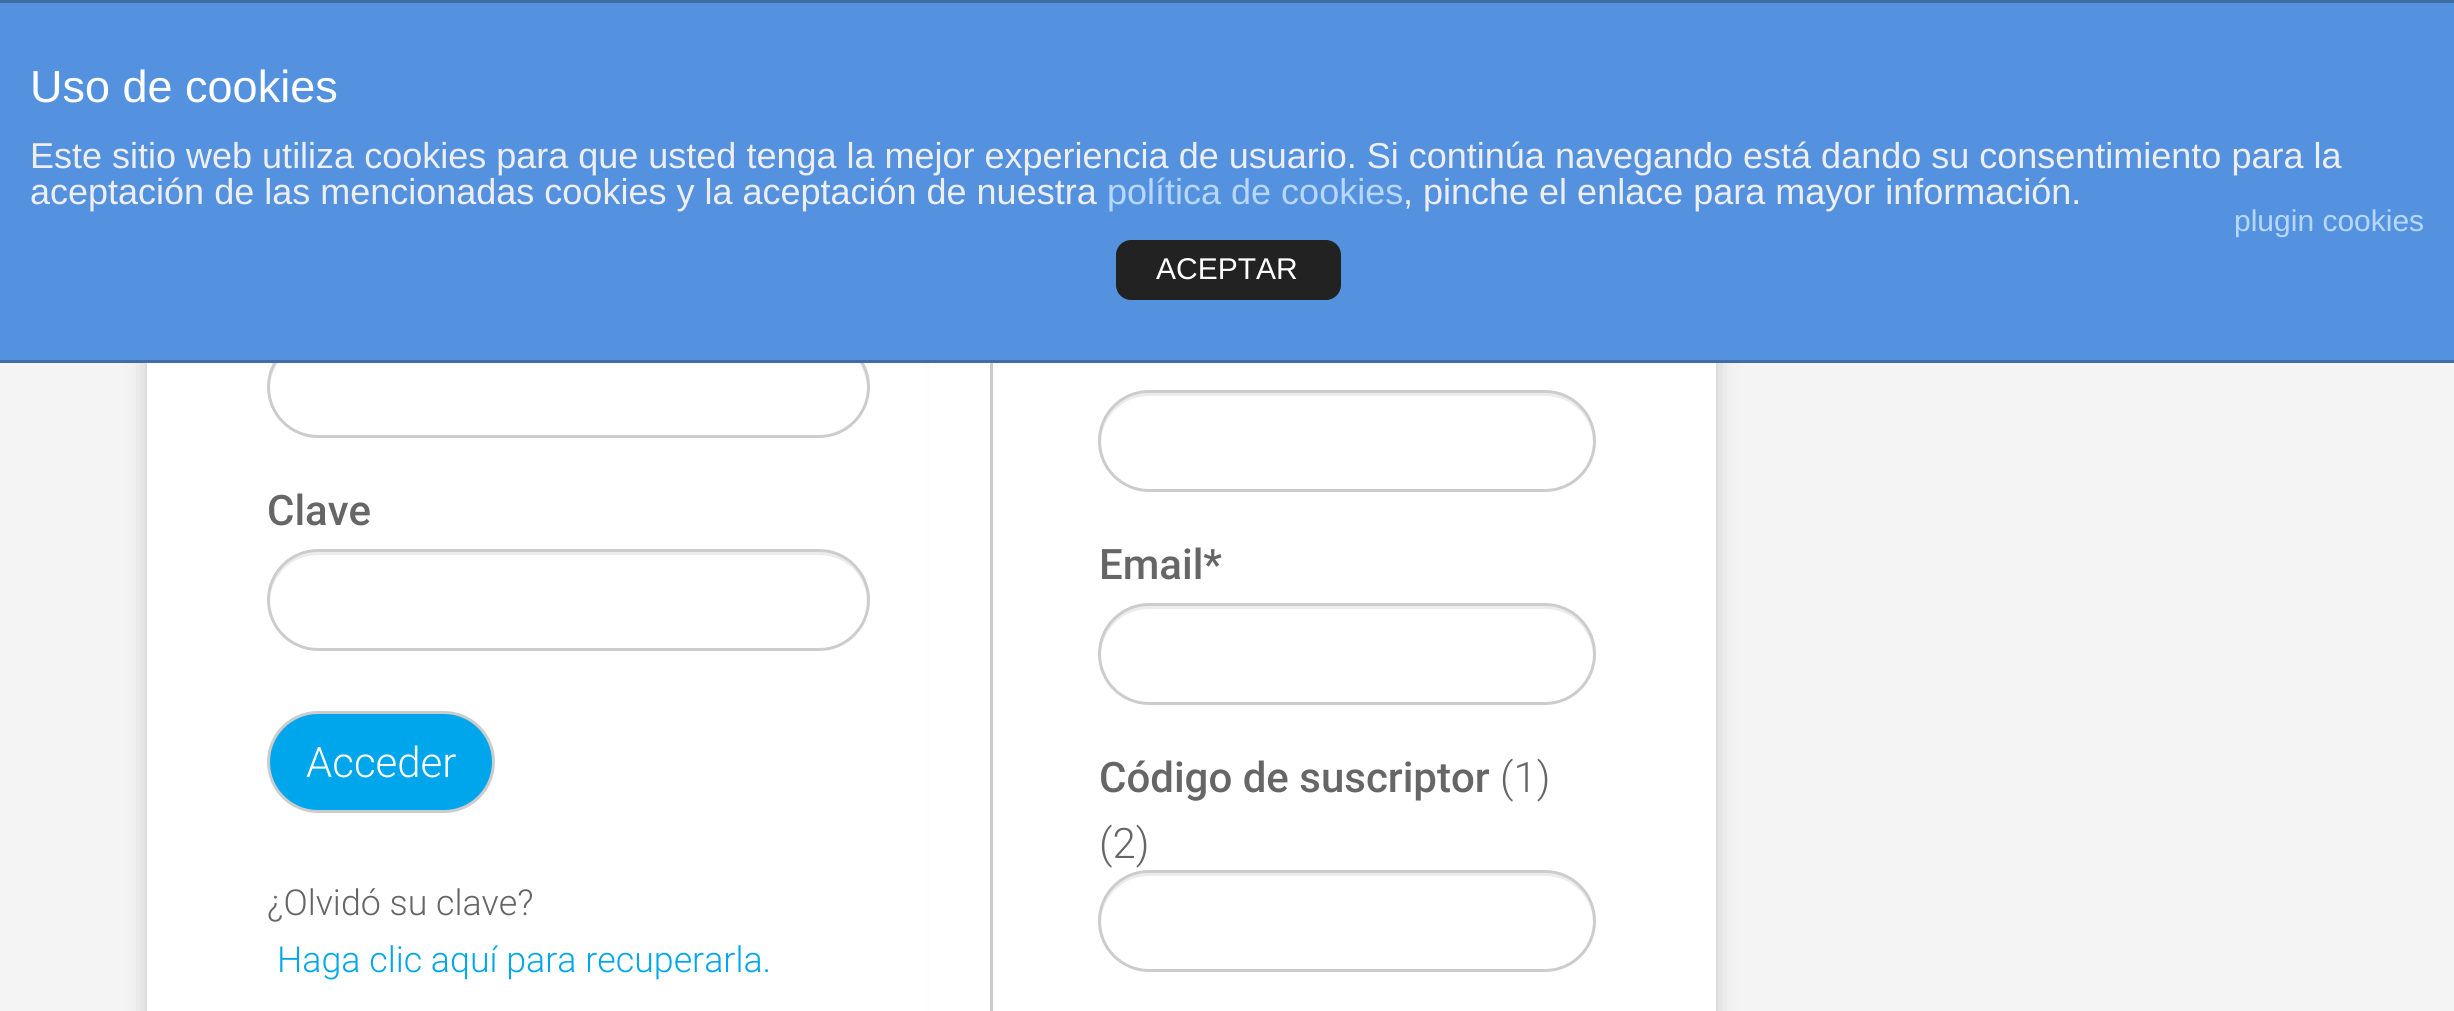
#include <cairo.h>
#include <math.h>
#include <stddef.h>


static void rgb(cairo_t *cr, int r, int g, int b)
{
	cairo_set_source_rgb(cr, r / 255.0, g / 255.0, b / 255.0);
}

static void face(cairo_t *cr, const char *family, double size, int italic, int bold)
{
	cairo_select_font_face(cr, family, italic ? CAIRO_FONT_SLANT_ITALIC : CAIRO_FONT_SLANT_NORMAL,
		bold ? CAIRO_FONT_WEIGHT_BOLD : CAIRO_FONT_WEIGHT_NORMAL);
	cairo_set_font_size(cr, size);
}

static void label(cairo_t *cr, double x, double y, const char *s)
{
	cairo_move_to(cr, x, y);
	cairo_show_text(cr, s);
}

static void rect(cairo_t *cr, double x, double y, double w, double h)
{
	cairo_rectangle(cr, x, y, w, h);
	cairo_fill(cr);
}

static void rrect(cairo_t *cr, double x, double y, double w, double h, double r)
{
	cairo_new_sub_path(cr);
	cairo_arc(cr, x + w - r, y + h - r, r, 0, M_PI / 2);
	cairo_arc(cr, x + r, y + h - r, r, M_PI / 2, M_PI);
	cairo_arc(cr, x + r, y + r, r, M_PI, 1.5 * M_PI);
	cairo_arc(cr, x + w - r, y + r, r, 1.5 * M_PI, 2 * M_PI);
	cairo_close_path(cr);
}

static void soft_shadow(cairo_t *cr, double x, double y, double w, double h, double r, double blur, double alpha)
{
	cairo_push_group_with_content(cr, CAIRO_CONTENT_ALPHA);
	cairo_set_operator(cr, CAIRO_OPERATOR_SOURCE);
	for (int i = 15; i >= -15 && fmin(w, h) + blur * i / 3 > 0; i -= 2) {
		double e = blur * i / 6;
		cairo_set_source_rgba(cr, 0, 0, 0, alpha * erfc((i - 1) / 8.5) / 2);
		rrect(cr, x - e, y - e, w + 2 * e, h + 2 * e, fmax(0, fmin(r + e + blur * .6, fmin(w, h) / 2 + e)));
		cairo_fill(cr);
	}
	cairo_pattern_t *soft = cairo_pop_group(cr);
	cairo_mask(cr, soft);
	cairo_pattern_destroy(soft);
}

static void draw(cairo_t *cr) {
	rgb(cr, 244, 244, 244);
	cairo_paint(cr);
	rgb(cr, 0, 0, 0);
	soft_shadow(cr, 156, 69, 747, 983, 0, 13.5, 0.4);
	rgb(cr, 255, 255, 255);
	rect(cr, 147, 363, 783, 648);
	rgb(cr, 236, 236, 236);
	cairo_new_path(cr);
	cairo_move_to(cr, 318, 342);
	cairo_line_to(cr, 819, 342);
	cairo_curve_to(cr, 845, 342, 866, 362, 867, 388);
	cairo_line_to(cr, 867, 387);
	cairo_curve_to(cr, 867, 360, 846, 339, 819, 339);
	cairo_line_to(cr, 318, 339);
	cairo_curve_to(cr, 291, 339, 270, 360, 270, 387);
	cairo_line_to(cr, 270, 388);
	cairo_curve_to(cr, 271, 362, 292, 342, 318, 342);
	cairo_close_path(cr);
	cairo_fill(cr);
	rrect(cr, 268.5, 337.5, 600, 99, 49.5);
	rgb(cr, 204, 204, 204);
	cairo_set_line_width(cr, 3);
	cairo_stroke(cr);
	rgb(cr, 0, 0, 0);
	soft_shadow(cr, 957, 69, 750, 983, 0, 13.5, 0.4);
	rgb(cr, 84, 146, 224);
	rect(cr, 0, 3, 2454, 357);
	rgb(cr, 63, 109, 167);
	rect(cr, 0, 0, 2454, 3);
	rect(cr, 0, 360, 2454, 3);
	face(cr, "Liberation Sans", 45, 0, 0);
	rgb(cr, 255, 255, 255);
	label(cr, 30, 102, "Uso de cookies");
	face(cr, "Liberation Sans", 36, 0, 0);
	rgb(cr, 238, 238, 238);
	label(cr, 30, 168, "Este sitio web utiliza cookies para que usted tenga la mejor experiencia de usuario. Si continúa navegando está dando su consentimiento para la");
	label(cr, 30, 204, "aceptación de las mencionadas cookies y la aceptación de nuestra");
	rgb(cr, 183, 215, 255);
	label(cr, 1107, 204, "política de cookies");
	rgb(cr, 238, 238, 238);
	label(cr, 1403, 204, ", pinche el enlace para mayor información.");
	face(cr, "Liberation Sans", 30, 0, 0);
	rgb(cr, 183, 215, 255);
	label(cr, 2234, 231, "plugin cookies");
	rgb(cr, 34, 34, 34);
	rrect(cr, 1116, 240, 225, 60, 15);
	cairo_fill(cr);
	rgb(cr, 255, 255, 255);
	label(cr, 1156, 279, "ACEPTAR");
	face(cr, "Roboto Medium", 42, 0, 0);
	rgb(cr, 102, 102, 102);
	label(cr, 267, 525, "Clave");
	rgb(cr, 236, 236, 236);
	cairo_new_path(cr);
	cairo_move_to(cr, 318, 555);
	cairo_line_to(cr, 819, 555);
	cairo_curve_to(cr, 845, 555, 866, 575, 867, 601);
	cairo_line_to(cr, 867, 600);
	cairo_curve_to(cr, 867, 573, 846, 552, 819, 552);
	cairo_line_to(cr, 318, 552);
	cairo_curve_to(cr, 291, 552, 270, 573, 270, 600);
	cairo_line_to(cr, 270, 601);
	cairo_curve_to(cr, 271, 575, 292, 555, 318, 555);
	cairo_close_path(cr);
	cairo_fill(cr);
	rrect(cr, 268.5, 550.5, 600, 99, 49.5);
	rgb(cr, 204, 204, 204);
	cairo_stroke(cr);
	rgb(cr, 0, 166, 235);
	rrect(cr, 268.5, 712.5, 225, 99, 49.5);
	cairo_fill_preserve(cr);
	rgb(cr, 204, 204, 204);
	cairo_stroke(cr);
	face(cr, "Roboto Light", 42, 0, 0);
	rgb(cr, 255, 255, 255);
	label(cr, 306, 777, "Acceder");
	face(cr, "Roboto Light", 35.75, 0, 0);
	rgb(cr, 102, 102, 102);
	label(cr, 267, 915, "¿Olvidó su clave?");
	rgb(cr, 0, 166, 235);
	label(cr, 277, 972, "Haga clic aquí para recuperarla.");
	rgb(cr, 255, 255, 255);
	rect(cr, 930, 363, 786, 648);
	rgb(cr, 204, 204, 204);
	rect(cr, 990, 363, 3, 648);
	rgb(cr, 236, 236, 236);
	cairo_new_path(cr);
	cairo_move_to(cr, 1149, 396);
	cairo_line_to(cr, 1545, 396);
	cairo_curve_to(cr, 1571, 396, 1592, 416, 1593, 442);
	cairo_line_to(cr, 1593, 441);
	cairo_curve_to(cr, 1593, 414, 1572, 393, 1545, 393);
	cairo_line_to(cr, 1149, 393);
	cairo_curve_to(cr, 1122, 393, 1101, 414, 1101, 441);
	cairo_line_to(cr, 1101, 442);
	cairo_curve_to(cr, 1102, 416, 1123, 396, 1149, 396);
	cairo_close_path(cr);
	cairo_fill(cr);
	rrect(cr, 1099.5, 391.5, 495, 99, 49.5);
	rgb(cr, 204, 204, 204);
	cairo_stroke(cr);
	face(cr, "Roboto Medium", 42, 0, 0);
	rgb(cr, 102, 102, 102);
	label(cr, 1099, 579, "Email*");
	rgb(cr, 236, 236, 236);
	cairo_new_path(cr);
	cairo_move_to(cr, 1149, 609);
	cairo_line_to(cr, 1545, 609);
	cairo_curve_to(cr, 1571, 609, 1592, 629, 1593, 655);
	cairo_line_to(cr, 1593, 654);
	cairo_curve_to(cr, 1593, 627, 1572, 606, 1545, 606);
	cairo_line_to(cr, 1149, 606);
	cairo_curve_to(cr, 1122, 606, 1101, 627, 1101, 654);
	cairo_line_to(cr, 1101, 655);
	cairo_curve_to(cr, 1102, 629, 1123, 609, 1149, 609);
	cairo_close_path(cr);
	cairo_fill(cr);
	rrect(cr, 1099.5, 604.5, 495, 99, 49.5);
	rgb(cr, 204, 204, 204);
	cairo_stroke(cr);
	rgb(cr, 102, 102, 102);
	label(cr, 1099, 792, "Código de suscriptor");
	face(cr, "Roboto Light", 42, 0, 0);
	label(cr, 1500, 792, "(1)");
	label(cr, 1099, 858, "(2)");
	rgb(cr, 236, 236, 236);
	cairo_new_path(cr);
	cairo_move_to(cr, 1149, 876);
	cairo_line_to(cr, 1545, 876);
	cairo_curve_to(cr, 1571, 876, 1592, 896, 1593, 922);
	cairo_line_to(cr, 1593, 921);
	cairo_curve_to(cr, 1593, 894, 1572, 873, 1545, 873);
	cairo_line_to(cr, 1149, 873);
	cairo_curve_to(cr, 1122, 873, 1101, 894, 1101, 921);
	cairo_line_to(cr, 1101, 922);
	cairo_curve_to(cr, 1102, 896, 1123, 876, 1149, 876);
	cairo_close_path(cr);
	cairo_fill(cr);
	rrect(cr, 1099.5, 871.5, 495, 99, 49.5);
	rgb(cr, 204, 204, 204);
	cairo_stroke(cr);
}

int main(void) {
	cairo_surface_t *surface = cairo_image_surface_create(CAIRO_FORMAT_RGB24, 2454, 1011);
	cairo_t *cr = cairo_create(surface);
	cairo_font_options_t *options = cairo_font_options_create();
	cairo_font_options_set_hint_metrics(options, CAIRO_HINT_METRICS_OFF);
	cairo_font_options_set_hint_style(options, CAIRO_HINT_STYLE_NONE);
	cairo_set_font_options(cr, options);
	cairo_set_miter_limit(cr, 4);
	draw(cr);
	cairo_surface_write_to_png(surface, "render.png");
	cairo_font_options_destroy(options);
	cairo_destroy(cr);
	cairo_surface_destroy(surface);
	return 0;
}
